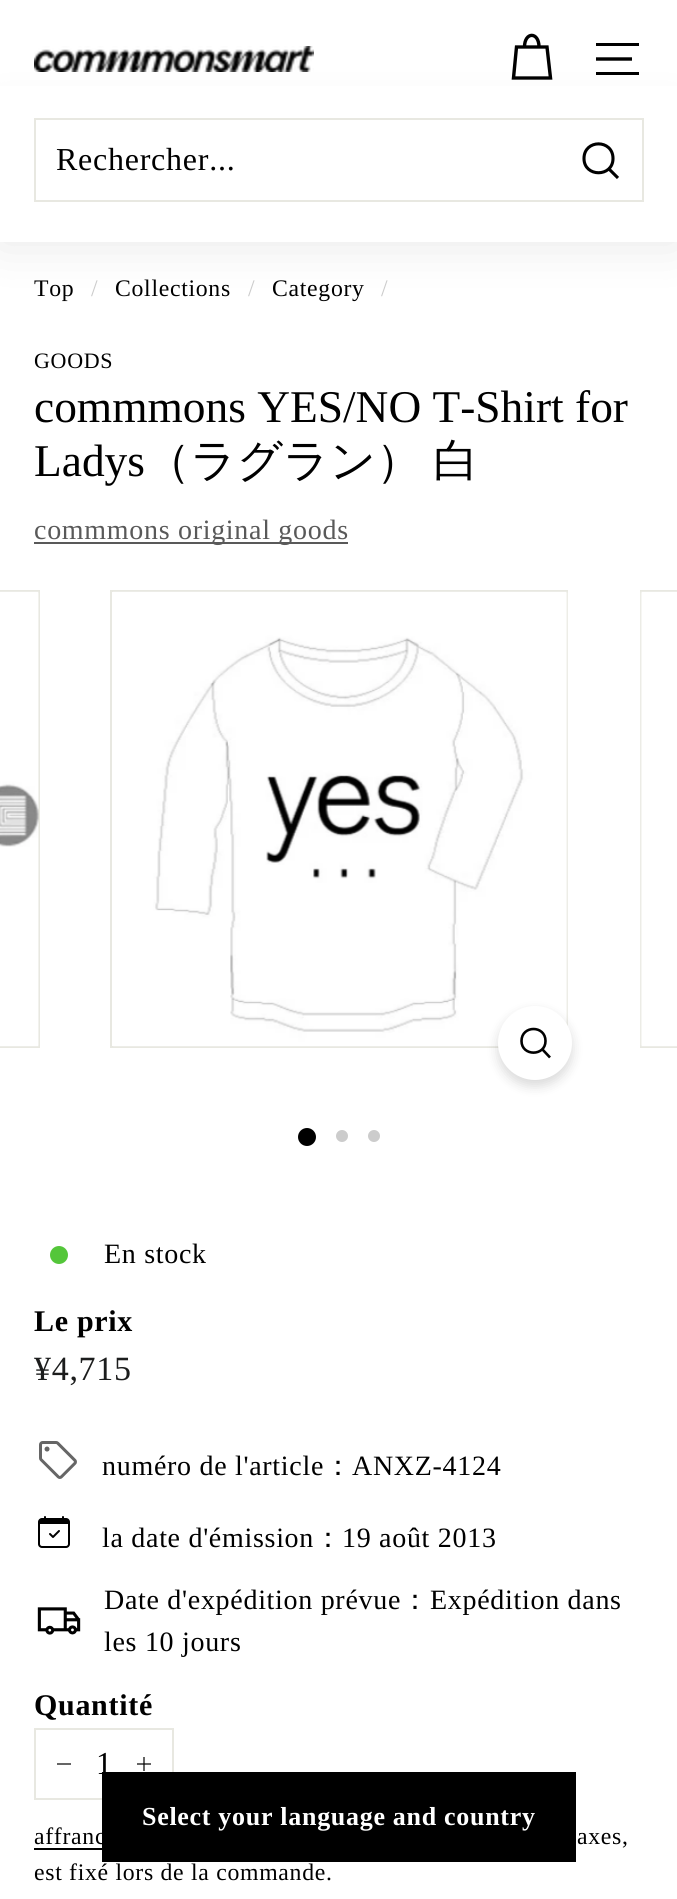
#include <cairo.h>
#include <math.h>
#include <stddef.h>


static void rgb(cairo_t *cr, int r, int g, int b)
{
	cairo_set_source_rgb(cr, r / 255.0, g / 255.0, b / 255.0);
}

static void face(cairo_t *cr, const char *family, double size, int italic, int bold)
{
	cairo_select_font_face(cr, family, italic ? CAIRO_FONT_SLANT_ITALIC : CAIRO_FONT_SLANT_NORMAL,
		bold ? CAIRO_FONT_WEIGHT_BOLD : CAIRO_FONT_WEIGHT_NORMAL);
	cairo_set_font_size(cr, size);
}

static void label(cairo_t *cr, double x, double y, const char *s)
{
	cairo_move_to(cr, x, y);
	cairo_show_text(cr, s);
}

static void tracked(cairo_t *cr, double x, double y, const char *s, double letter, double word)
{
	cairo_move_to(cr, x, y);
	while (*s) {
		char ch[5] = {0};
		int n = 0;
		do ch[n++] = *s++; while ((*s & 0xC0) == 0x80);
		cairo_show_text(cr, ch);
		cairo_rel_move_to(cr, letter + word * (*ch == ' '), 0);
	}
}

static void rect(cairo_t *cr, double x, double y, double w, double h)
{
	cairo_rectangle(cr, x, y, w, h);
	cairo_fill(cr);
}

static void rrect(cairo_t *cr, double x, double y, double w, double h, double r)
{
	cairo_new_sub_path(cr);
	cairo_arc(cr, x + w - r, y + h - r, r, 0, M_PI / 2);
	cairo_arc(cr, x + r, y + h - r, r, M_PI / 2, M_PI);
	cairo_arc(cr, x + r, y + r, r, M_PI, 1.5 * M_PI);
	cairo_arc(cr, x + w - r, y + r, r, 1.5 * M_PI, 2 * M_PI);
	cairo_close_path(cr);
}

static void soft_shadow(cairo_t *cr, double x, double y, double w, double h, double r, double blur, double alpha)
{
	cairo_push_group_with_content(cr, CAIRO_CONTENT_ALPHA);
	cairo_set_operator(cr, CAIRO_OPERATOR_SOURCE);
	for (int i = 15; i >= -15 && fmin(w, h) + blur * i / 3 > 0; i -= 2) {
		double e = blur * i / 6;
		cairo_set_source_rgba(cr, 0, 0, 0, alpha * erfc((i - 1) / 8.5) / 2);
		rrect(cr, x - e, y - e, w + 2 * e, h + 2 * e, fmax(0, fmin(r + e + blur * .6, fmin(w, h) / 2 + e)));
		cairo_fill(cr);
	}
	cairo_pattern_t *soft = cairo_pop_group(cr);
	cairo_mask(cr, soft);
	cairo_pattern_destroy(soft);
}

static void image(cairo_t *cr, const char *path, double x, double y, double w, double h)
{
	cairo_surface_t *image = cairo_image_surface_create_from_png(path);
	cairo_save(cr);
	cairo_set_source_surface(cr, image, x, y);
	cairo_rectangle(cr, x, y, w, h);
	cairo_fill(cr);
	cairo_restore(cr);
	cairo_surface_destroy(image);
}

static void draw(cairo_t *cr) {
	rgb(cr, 255, 255, 255);
	cairo_paint(cr);
	rgb(cr, 0, 0, 0);
	soft_shadow(cr, 0, 118, 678, 124, 0, 25, 0.1);
	image(cr, "image0.png", 34, 46, 280, 26);
	cairo_new_path(cr);
	cairo_move_to(cr, 524.5, 47);
	cairo_curve_to(cr, 524.5, 31.5, 539, 31.5, 539, 47);
	cairo_move_to(cr, 516.5, 47);
	cairo_line_to(cr, 547, 47);
	cairo_line_to(cr, 550.5, 78);
	cairo_line_to(cr, 513.5, 78);
	cairo_close_path(cr);
	rgb(cr, 0, 0, 0);
	cairo_set_line_width(cr, 3.4);
	cairo_stroke(cr);
	rect(cr, 596, 43, 43, 3);
	cairo_new_path(cr);
	cairo_move_to(cr, 596, 59);
	cairo_line_to(cr, 632, 59);
	cairo_stroke(cr);
	rect(cr, 596, 72, 43, 3);
	rgb(cr, 255, 255, 255);
	rect(cr, 0, 86, 677, 156);
	cairo_rectangle(cr, 35, 119, 608, 82);
	rgb(cr, 232, 232, 225);
	cairo_set_line_width(cr, 2);
	cairo_stroke(cr);
	face(cr, "Liberation Serif", 32, 0, 0);
	rgb(cr, 0, 0, 0);
	tracked(cr, 56, 170, "Rechercher...", 0.75, 0);
	cairo_new_path(cr);
	cairo_move_to(cr, 613, 158.5);
	cairo_curve_to(cr, 613, 177.5, 584, 177.5, 584, 158.5);
	cairo_curve_to(cr, 584, 139, 613, 139, 613, 158.5);
	cairo_close_path(cr);
	cairo_move_to(cr, 618, 178);
	cairo_line_to(cr, 609, 169);
	cairo_set_line_width(cr, 3.1);
	cairo_stroke(cr);
	face(cr, "Liberation Serif", 23.75, 0, 0);
	tracked(cr, 34, 296, "Top", 0.7, 0);
	rgb(cr, 204, 204, 204);
	tracked(cr, 91, 296, "/", 0.7, 0);
	rgb(cr, 0, 0, 0);
	tracked(cr, 115, 296, "Collections", 0.7, 0);
	rgb(cr, 204, 204, 204);
	tracked(cr, 248, 296, "/", 0.7, 0);
	rgb(cr, 0, 0, 0);
	tracked(cr, 272, 296, "Category", 0.7, 0);
	rgb(cr, 204, 204, 204);
	tracked(cr, 381, 296, "/", 0.7, 0);
	face(cr, "Liberation Serif", 22, 0, 0);
	rgb(cr, 0, 0, 0);
	tracked(cr, 34, 368, "GOODS", 0.7, 0);
	face(cr, "Liberation Serif", 45.4, 0, 0);
	label(cr, 34, 422, "commmons YES/NO T-Shirt for");
	label(cr, 34, 476, "Ladys");
	face(cr, "WenQuanYi Zen Hei Medium", 45.4, 0, 0);
	tracked(cr, 145, 476, "（ラグラン） 白", 0, -2);
	rgb(cr, 89, 89, 89);
	rect(cr, 34, 542, 314, 2);
	face(cr, "Liberation Serif", 28, 0, 0);
	tracked(cr, 34, 539, "commmons original goods", 0.7, 0);
	cairo_rectangle(cr, -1, 591, 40, 456);
	rgb(cr, 232, 232, 225);
	cairo_set_line_width(cr, 2);
	cairo_stroke(cr);
	image(cr, "image1.png", 0, 591, 39, 456);
	cairo_rectangle(cr, 111, 591, 456, 456);
	cairo_stroke(cr);
	image(cr, "image2.png", 113, 591, 455, 456);
	rgb(cr, 0, 0, 0);
	soft_shadow(cr, 498, 1012, 74, 74, 37, 6, 0.15);
	rgb(cr, 255, 255, 255);
	cairo_arc(cr, 535, 1043, 37, 0, 2 * M_PI);
	cairo_fill(cr);
	cairo_new_path(cr);
	cairo_move_to(cr, 545.5, 1041);
	cairo_curve_to(cr, 545.5, 1056.5, 521.5, 1056.5, 521.5, 1041);
	cairo_curve_to(cr, 521.5, 1025, 545.5, 1025, 545.5, 1041);
	cairo_close_path(cr);
	cairo_move_to(cr, 550, 1057.5);
	cairo_line_to(cr, 542.5, 1049.5);
	rgb(cr, 0, 0, 0);
	cairo_set_line_width(cr, 2.6);
	cairo_stroke(cr);
	cairo_rectangle(cr, 641, 591, 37, 456);
	rgb(cr, 232, 232, 225);
	cairo_set_line_width(cr, 2);
	cairo_stroke(cr);
	image(cr, "image3.png", 640, 591, 37, 456);
	rgb(cr, 0, 0, 0);
	cairo_arc(cr, 307, 1137, 9, 0, 2 * M_PI);
	cairo_fill(cr);
	rgb(cr, 204, 204, 204);
	cairo_arc(cr, 342, 1136, 6, 0, 2 * M_PI);
	cairo_fill(cr);
	cairo_arc(cr, 374, 1136, 6, 0, 2 * M_PI);
	cairo_fill(cr);
	rgb(cr, 84, 198, 58);
	cairo_arc(cr, 59, 1255, 9, 0, 2 * M_PI);
	cairo_fill(cr);
	rgb(cr, 0, 0, 0);
	tracked(cr, 104, 1263, "En stock", 0.7, 0);
	face(cr, "Liberation Serif", 30, 0, 1);
	tracked(cr, 34, 1331, "Le prix", 0.7, 0);
	face(cr, "Liberation Serif", 34, 0, 0);
	rgb(cr, 28, 29, 29);
	tracked(cr, 34, 1380, "¥4,715", 0.7, 0);
	image(cr, "image4.png", 39, 1441, 38, 38);
	face(cr, "Liberation Serif", 28, 0, 0);
	rgb(cr, 0, 0, 0);
	tracked(cr, 102, 1475, "numéro de l'article", 0.7, 0);
	face(cr, "WenQuanYi Zen Hei Medium", 28, 0, 0);
	tracked(cr, 324, 1475, "：", 0.7, 0);
	face(cr, "Liberation Serif", 28, 0, 0);
	tracked(cr, 352, 1475, "ANXZ-4124", 0.7, 0);
	image(cr, "image5.png", 38, 1516, 32, 32);
	tracked(cr, 102, 1547, "la date d'émission", 0.7, 0);
	face(cr, "WenQuanYi Zen Hei Medium", 28, 0, 0);
	tracked(cr, 314, 1547, "：", 0.7, 0);
	face(cr, "Liberation Serif", 28, 0, 0);
	tracked(cr, 342, 1547, "19 août 2013", 0.7, 0);
	image(cr, "image6.png", 37, 1607, 44, 28);
	tracked(cr, 104, 1609, "Date d'expédition prévue", 0.7, 0);
	face(cr, "WenQuanYi Zen Hei Medium", 28, 0, 0);
	tracked(cr, 401, 1609, "：", 0.7, 0);
	face(cr, "Liberation Serif", 28, 0, 0);
	tracked(cr, 430, 1609, "Expédition dans", 0.7, 0);
	tracked(cr, 104, 1651, "les 10 jours", 0.7, 0);
	face(cr, "Liberation Serif", 30, 0, 1);
	tracked(cr, 34, 1715, "Quantité", 0.7, 0);
	cairo_rectangle(cr, 35, 1729, 138, 70);
	rgb(cr, 232, 232, 225);
	cairo_stroke(cr);
	cairo_new_path(cr);
	cairo_move_to(cr, 71, 1764);
	cairo_line_to(cr, 57, 1764);
	rgb(cr, 0, 0, 0);
	cairo_set_line_width(cr, 1.2);
	cairo_stroke(cr);
	face(cr, "Liberation Serif", 32, 0, 0);
	tracked(cr, 96, 1774, "1", 0.75, 0);
	cairo_new_path(cr);
	cairo_move_to(cr, 144, 1757);
	cairo_line_to(cr, 144, 1771);
	cairo_move_to(cr, 151, 1764);
	cairo_line_to(cr, 137, 1764);
	cairo_stroke(cr);
	face(cr, "Liberation Serif", 23.75, 0, 0);
	tracked(cr, 34, 1844, "affranc", 0.7, 0);
	rect(cr, 34, 1848, 68, 2);
	tracked(cr, 577, 1844, "axes,", 0.7, 0);
	tracked(cr, 34, 1880, "est fixé lors de la commande.", 0.7, 0);
	rect(cr, 102, 1772, 474, 90);
	face(cr, "Liberation Serif", 26, 0, 1);
	rgb(cr, 255, 255, 255);
	tracked(cr, 142, 1825, "Select your language and country", 0.7, 0);
}

int main(void) {
	cairo_surface_t *surface = cairo_image_surface_create(CAIRO_FORMAT_RGB24, 677, 1899);
	cairo_t *cr = cairo_create(surface);
	cairo_font_options_t *options = cairo_font_options_create();
	cairo_font_options_set_hint_metrics(options, CAIRO_HINT_METRICS_OFF);
	cairo_font_options_set_hint_style(options, CAIRO_HINT_STYLE_NONE);
	cairo_set_font_options(cr, options);
	cairo_set_miter_limit(cr, 4);
	draw(cr);
	cairo_surface_write_to_png(surface, "render.png");
	cairo_font_options_destroy(options);
	cairo_destroy(cr);
	cairo_surface_destroy(surface);
	return 0;
}
